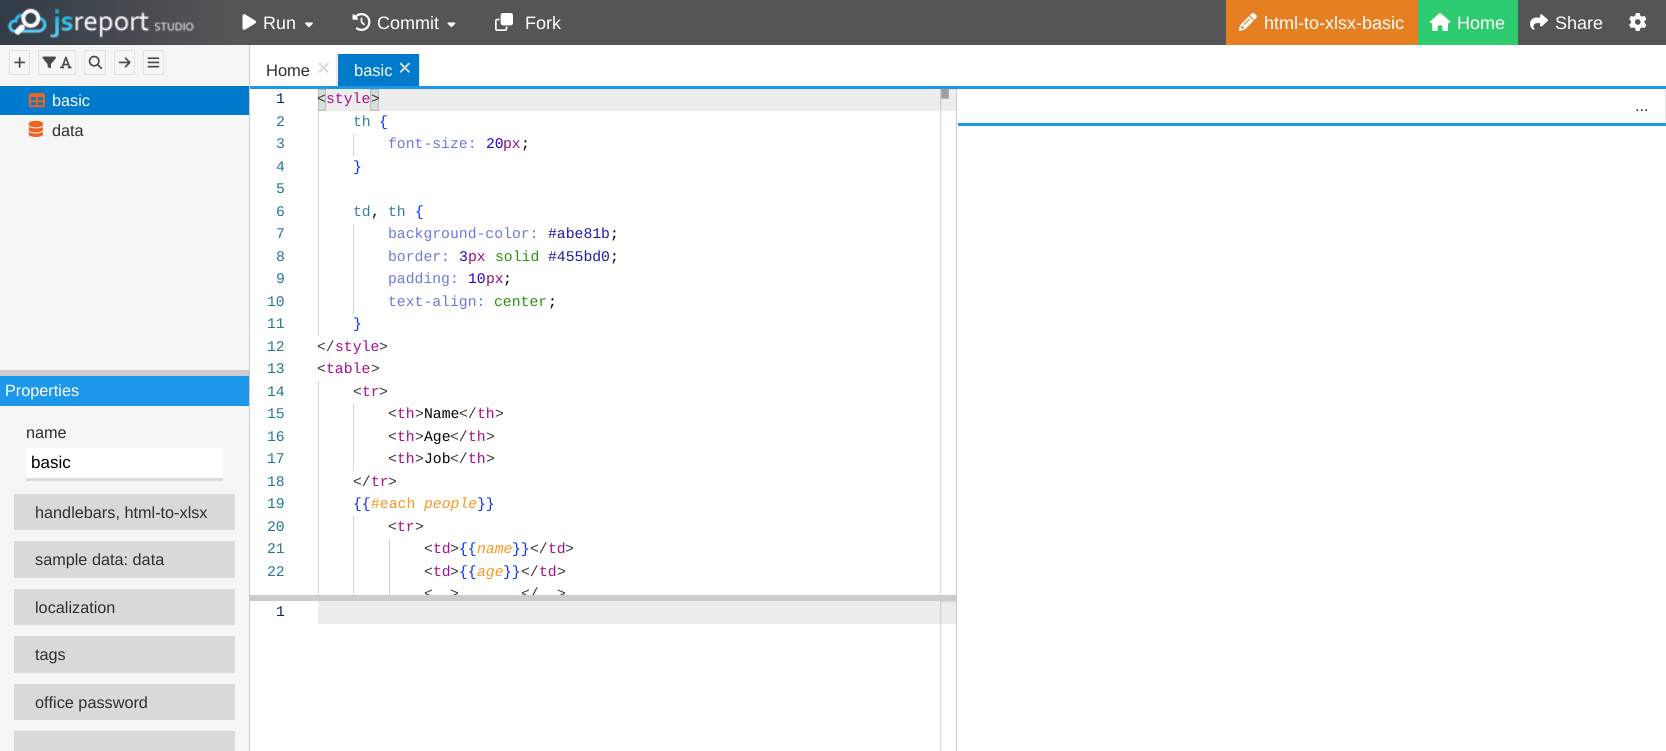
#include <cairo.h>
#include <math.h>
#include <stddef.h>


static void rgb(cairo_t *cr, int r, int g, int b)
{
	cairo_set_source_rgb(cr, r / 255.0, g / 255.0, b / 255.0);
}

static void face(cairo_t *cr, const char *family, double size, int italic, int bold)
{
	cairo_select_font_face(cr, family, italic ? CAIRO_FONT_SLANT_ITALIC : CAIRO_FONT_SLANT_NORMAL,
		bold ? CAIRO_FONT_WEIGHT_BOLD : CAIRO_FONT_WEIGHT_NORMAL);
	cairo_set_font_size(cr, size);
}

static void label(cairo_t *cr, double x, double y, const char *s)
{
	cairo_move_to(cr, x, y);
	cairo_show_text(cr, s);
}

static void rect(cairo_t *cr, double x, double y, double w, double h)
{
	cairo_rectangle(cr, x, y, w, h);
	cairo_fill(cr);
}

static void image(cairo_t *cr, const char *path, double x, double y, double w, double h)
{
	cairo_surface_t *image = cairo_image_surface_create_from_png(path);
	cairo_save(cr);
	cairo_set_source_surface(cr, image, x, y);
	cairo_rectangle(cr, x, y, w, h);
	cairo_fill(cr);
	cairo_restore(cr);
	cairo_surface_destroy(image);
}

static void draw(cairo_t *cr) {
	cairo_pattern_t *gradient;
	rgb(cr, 255, 255, 255);
	cairo_paint(cr);
	rgb(cr, 85, 85, 85);
	rect(cr, 230, 0, 1436, 45);
	gradient = cairo_pattern_create_linear(230, 23, 0, 22);
	cairo_pattern_add_color_stop_rgba(gradient, 0, 0.333, 0.333, 0.333, 1);
	cairo_pattern_add_color_stop_rgba(gradient, 1, 0.196, 0.235, 0.278, 1);
	cairo_set_source(cr, gradient);
	cairo_pattern_destroy(gradient);
	rect(cr, 0, 0, 230, 45);
	image(cr, "image0.png", 7, 8, 187, 30);
	image(cr, "image1.png", 242, 14, 14, 16);
	face(cr, "Liberation Sans", 18, 0, 0);
	rgb(cr, 255, 255, 255);
	label(cr, 263, 29, "Run");
	image(cr, "image2.png", 305, 22, 8, 6);
	image(cr, "image3.png", 352, 13, 19, 18);
	label(cr, 377, 29, "Commit");
	image(cr, "image4.png", 447, 22, 9, 6);
	image(cr, "image5.png", 495, 13, 18, 18);
	label(cr, 525, 29, "Fork");
	rgb(cr, 230, 126, 34);
	rect(cr, 1226, 0, 192, 45);
	image(cr, "image6.png", 1238, 13, 19, 18);
	rgb(cr, 255, 255, 255);
	label(cr, 1264, 29, "html-to-xlsx-basic");
	rgb(cr, 46, 204, 113);
	rect(cr, 1418, 0, 100, 45);
	image(cr, "image7.png", 1430, 13, 21, 18);
	rgb(cr, 255, 255, 255);
	label(cr, 1457, 29, "Home");
	image(cr, "image8.png", 1530, 14, 18, 16);
	label(cr, 1555, 29, "Share");
	image(cr, "image9.png", 1629, 13, 18, 18);
	rgb(cr, 246, 246, 246);
	rect(cr, 0, 45, 249, 325);
	cairo_rectangle(cr, 9.5, 50.5, 20, 24);
	rgb(cr, 226, 226, 226);
	cairo_set_line_width(cr, 1);
	cairo_stroke(cr);
	image(cr, "image10.png", 14, 57, 12, 11);
	cairo_rectangle(cr, 38.5, 50.5, 37, 24);
	cairo_stroke(cr);
	image(cr, "image11.png", 42, 56, 14, 13);
	image(cr, "image12.png", 60, 56, 12, 13);
	cairo_rectangle(cr, 84.5, 50.5, 21, 24);
	cairo_stroke(cr);
	image(cr, "image13.png", 88, 55, 15, 15);
	cairo_rectangle(cr, 114.5, 50.5, 20, 24);
	cairo_stroke(cr);
	image(cr, "image14.png", 118, 57, 13, 11);
	cairo_rectangle(cr, 143.5, 50.5, 20, 24);
	cairo_stroke(cr);
	image(cr, "image15.png", 147, 57, 13, 11);
	rgb(cr, 0, 122, 204);
	rect(cr, 0, 86, 249, 29);
	image(cr, "image16.png", 28, 93, 17, 15);
	face(cr, "Liberation Sans", 16.25, 0, 0);
	rgb(cr, 255, 255, 255);
	label(cr, 52, 106, "basic");
	image(cr, "image17.png", 28, 120, 15, 17);
	rgb(cr, 47, 47, 47);
	label(cr, 52, 136, "data");
	rgb(cr, 204, 204, 204);
	rect(cr, 0, 370, 249, 6);
	rgb(cr, 246, 246, 246);
	rect(cr, 0, 406, 249, 345);
	rgb(cr, 28, 151, 234);
	rect(cr, 0, 376, 249, 30);
	rgb(cr, 255, 255, 255);
	label(cr, 5, 396, "Properties");
	rgb(cr, 47, 47, 47);
	label(cr, 26, 438, "name");
	rgb(cr, 255, 255, 255);
	rect(cr, 26, 448, 197, 30);
	rgb(cr, 217, 217, 217);
	rect(cr, 26, 478, 197, 3);
	face(cr, "Liberation Sans", 17, 0, 0);
	rgb(cr, 0, 0, 0);
	label(cr, 31, 468, "basic");
	rgb(cr, 217, 217, 217);
	rect(cr, 14, 494, 221, 36);
	face(cr, "Liberation Sans", 16.25, 0, 0);
	rgb(cr, 47, 47, 47);
	label(cr, 35, 518, "handlebars, html-to-xlsx");
	rgb(cr, 217, 217, 217);
	rect(cr, 14, 541, 221, 37);
	rgb(cr, 47, 47, 47);
	label(cr, 35, 565, "sample data: data");
	rgb(cr, 217, 217, 217);
	rect(cr, 14, 589, 221, 36);
	rgb(cr, 47, 47, 47);
	label(cr, 35, 613, "localization");
	rgb(cr, 217, 217, 217);
	rect(cr, 14, 636, 221, 37);
	rgb(cr, 47, 47, 47);
	label(cr, 35, 660, "tags");
	rgb(cr, 217, 217, 217);
	rect(cr, 14, 684, 221, 36);
	rgb(cr, 47, 47, 47);
	label(cr, 35, 708, "office password");
	rgb(cr, 217, 217, 217);
	rect(cr, 14, 731, 221, 20);
	rgb(cr, 204, 204, 204);
	rect(cr, 249, 45, 1, 706);
	rgb(cr, 28, 151, 234);
	rect(cr, 250, 86, 1416, 3);
	rgb(cr, 230, 230, 230);
	rect(cr, 336, 54, 1, 32);
	face(cr, "Liberation Sans", 16.5, 0, 0);
	rgb(cr, 47, 47, 47);
	label(cr, 266, 76, "Home");
	image(cr, "image18.png", 318, 62, 11, 11);
	rgb(cr, 0, 122, 204);
	rect(cr, 338, 54, 81, 32);
	rgb(cr, 230, 230, 230);
	rect(cr, 419, 54, 1, 32);
	rgb(cr, 255, 255, 255);
	label(cr, 354, 76, "basic");
	image(cr, "image19.png", 399, 62, 11, 11);
	face(cr, "Liberation Mono", 14.75, 0, 0);
	rgb(cr, 11, 33, 111);
	label(cr, 276, 103, "1");
	rgb(cr, 35, 120, 147);
	label(cr, 276, 126, "2");
	label(cr, 276, 148, "3");
	label(cr, 276, 171, "4");
	label(cr, 276, 193, "5");
	label(cr, 276, 216, "6");
	label(cr, 276, 238, "7");
	label(cr, 276, 261, "8");
	label(cr, 276, 283, "9");
	label(cr, 267, 306, "10");
	label(cr, 267, 328, "11");
	label(cr, 267, 351, "12");
	label(cr, 267, 373, "13");
	label(cr, 267, 396, "14");
	label(cr, 267, 418, "15");
	label(cr, 267, 441, "16");
	label(cr, 267, 463, "17");
	label(cr, 267, 486, "18");
	label(cr, 267, 508, "19");
	label(cr, 267, 531, "20");
	label(cr, 267, 553, "21");
	label(cr, 267, 576, "22");
	rgb(cr, 213, 223, 213);
	cairo_rectangle(cr, 318.5, 89.5, 7, 21);
	cairo_fill_preserve(cr);
	rgb(cr, 185, 185, 185);
	cairo_stroke(cr);
	rgb(cr, 237, 237, 237);
	rect(cr, 326, 89, 630, 22);
	rgb(cr, 213, 223, 213);
	cairo_rectangle(cr, 370.5, 89.5, 8, 21);
	cairo_fill_preserve(cr);
	rgb(cr, 185, 185, 185);
	cairo_stroke(cr);
	rgb(cr, 211, 211, 211);
	rect(cr, 318, 111, 1, 225);
	rect(cr, 353, 134, 1, 22);
	rect(cr, 353, 224, 1, 90);
	rect(cr, 318, 381, 1, 214);
	rect(cr, 353, 404, 1, 67);
	rect(cr, 353, 516, 1, 79);
	rect(cr, 389, 539, 1, 56);
	rgb(cr, 56, 56, 56);
	label(cr, 317, 103, "<");
	rgb(cr, 170, 13, 145);
	label(cr, 326, 103, "style");
	rgb(cr, 56, 56, 56);
	label(cr, 371, 103, ">");
	rgb(cr, 49, 132, 149);
	label(cr, 353, 126, "th");
	rgb(cr, 4, 49, 250);
	label(cr, 379, 126, "{");
	rgb(cr, 109, 120, 222);
	label(cr, 388, 148, "font-size:");
	rgb(cr, 41, 0, 205);
	label(cr, 486, 148, "20");
	rgb(cr, 146, 15, 128);
	label(cr, 503, 148, "px");
	rgb(cr, 0, 0, 0);
	label(cr, 521, 148, ";");
	rgb(cr, 4, 49, 250);
	label(cr, 353, 171, "}");
	rgb(cr, 49, 132, 149);
	label(cr, 353, 216, "td");
	rgb(cr, 0, 0, 0);
	label(cr, 371, 216, ",");
	rgb(cr, 49, 132, 149);
	label(cr, 388, 216, "th");
	rgb(cr, 4, 49, 250);
	label(cr, 415, 216, "{");
	rgb(cr, 109, 120, 222);
	label(cr, 388, 238, "background-color:");
	rgb(cr, 31, 25, 166);
	label(cr, 548, 238, "#abe81b");
	rgb(cr, 0, 0, 0);
	label(cr, 610, 238, ";");
	rgb(cr, 109, 120, 222);
	label(cr, 388, 261, "border:");
	rgb(cr, 41, 0, 205);
	label(cr, 459, 261, "3");
	rgb(cr, 146, 15, 128);
	label(cr, 468, 261, "px");
	rgb(cr, 39, 149, 12);
	label(cr, 495, 261, "solid");
	rgb(cr, 31, 25, 166);
	label(cr, 548, 261, "#455bd0");
	rgb(cr, 0, 0, 0);
	label(cr, 610, 261, ";");
	rgb(cr, 109, 120, 222);
	label(cr, 388, 283, "padding:");
	rgb(cr, 41, 0, 205);
	label(cr, 468, 283, "10");
	rgb(cr, 146, 15, 128);
	label(cr, 486, 283, "px");
	rgb(cr, 0, 0, 0);
	label(cr, 503, 283, ";");
	rgb(cr, 109, 120, 222);
	label(cr, 388, 306, "text-align:");
	rgb(cr, 39, 149, 12);
	label(cr, 494, 306, "center");
	rgb(cr, 0, 0, 0);
	label(cr, 548, 306, ";");
	rgb(cr, 4, 49, 250);
	label(cr, 353, 328, "}");
	rgb(cr, 56, 56, 56);
	label(cr, 317, 351, "</");
	rgb(cr, 170, 13, 145);
	label(cr, 335, 351, "style");
	rgb(cr, 56, 56, 56);
	label(cr, 379, 351, ">");
	label(cr, 317, 373, "<");
	rgb(cr, 170, 13, 145);
	label(cr, 326, 373, "table");
	rgb(cr, 56, 56, 56);
	label(cr, 371, 373, ">");
	label(cr, 353, 396, "<");
	rgb(cr, 170, 13, 145);
	label(cr, 362, 396, "tr");
	rgb(cr, 56, 56, 56);
	label(cr, 379, 396, ">");
	label(cr, 388, 418, "<");
	rgb(cr, 170, 13, 145);
	label(cr, 397, 418, "th");
	rgb(cr, 56, 56, 56);
	label(cr, 415, 418, ">");
	rgb(cr, 0, 0, 0);
	label(cr, 424, 418, "Name");
	rgb(cr, 56, 56, 56);
	label(cr, 459, 418, "</");
	rgb(cr, 170, 13, 145);
	label(cr, 477, 418, "th");
	rgb(cr, 56, 56, 56);
	label(cr, 495, 418, ">");
	label(cr, 388, 441, "<");
	rgb(cr, 170, 13, 145);
	label(cr, 397, 441, "th");
	rgb(cr, 56, 56, 56);
	label(cr, 415, 441, ">");
	rgb(cr, 0, 0, 0);
	label(cr, 424, 441, "Age");
	rgb(cr, 56, 56, 56);
	label(cr, 450, 441, "</");
	rgb(cr, 170, 13, 145);
	label(cr, 468, 441, "th");
	rgb(cr, 56, 56, 56);
	label(cr, 486, 441, ">");
	label(cr, 388, 463, "<");
	rgb(cr, 170, 13, 145);
	label(cr, 397, 463, "th");
	rgb(cr, 56, 56, 56);
	label(cr, 415, 463, ">");
	rgb(cr, 0, 0, 0);
	label(cr, 424, 463, "Job");
	rgb(cr, 56, 56, 56);
	label(cr, 450, 463, "</");
	rgb(cr, 170, 13, 145);
	label(cr, 468, 463, "th");
	rgb(cr, 56, 56, 56);
	label(cr, 486, 463, ">");
	label(cr, 353, 486, "</");
	rgb(cr, 170, 13, 145);
	label(cr, 371, 486, "tr");
	rgb(cr, 56, 56, 56);
	label(cr, 388, 486, ">");
	rgb(cr, 4, 49, 250);
	label(cr, 353, 508, "{{");
	rgb(cr, 246, 151, 31);
	label(cr, 371, 508, "#each");
	face(cr, "Liberation Mono", 14.75, 1, 0);
	label(cr, 424, 508, "people");
	face(cr, "Liberation Mono", 14.75, 0, 0);
	rgb(cr, 4, 49, 250);
	label(cr, 477, 508, "}}");
	rgb(cr, 56, 56, 56);
	label(cr, 388, 531, "<");
	rgb(cr, 170, 13, 145);
	label(cr, 397, 531, "tr");
	rgb(cr, 56, 56, 56);
	label(cr, 415, 531, ">");
	label(cr, 424, 553, "<");
	rgb(cr, 170, 13, 145);
	label(cr, 433, 553, "td");
	rgb(cr, 56, 56, 56);
	label(cr, 450, 553, ">");
	rgb(cr, 4, 49, 250);
	label(cr, 459, 553, "{{");
	face(cr, "Liberation Mono", 14.75, 1, 0);
	rgb(cr, 246, 151, 31);
	label(cr, 477, 553, "name");
	face(cr, "Liberation Mono", 14.75, 0, 0);
	rgb(cr, 4, 49, 250);
	label(cr, 512, 553, "}}");
	rgb(cr, 56, 56, 56);
	label(cr, 530, 553, "</");
	rgb(cr, 170, 13, 145);
	label(cr, 548, 553, "td");
	rgb(cr, 56, 56, 56);
	label(cr, 565, 553, ">");
	label(cr, 424, 576, "<");
	rgb(cr, 170, 13, 145);
	label(cr, 433, 576, "td");
	rgb(cr, 56, 56, 56);
	label(cr, 450, 576, ">");
	rgb(cr, 4, 49, 250);
	label(cr, 459, 576, "{{");
	face(cr, "Liberation Mono", 14.75, 1, 0);
	rgb(cr, 246, 151, 31);
	label(cr, 477, 576, "age");
	face(cr, "Liberation Mono", 14.75, 0, 0);
	rgb(cr, 4, 49, 250);
	label(cr, 503, 576, "}}");
	rgb(cr, 56, 56, 56);
	label(cr, 521, 576, "</");
	rgb(cr, 170, 13, 145);
	label(cr, 539, 576, "td");
	rgb(cr, 56, 56, 56);
	label(cr, 557, 576, ">");
	label(cr, 424, 598, "<");
	label(cr, 450, 598, ">");
	label(cr, 521, 598, "</");
	label(cr, 557, 598, ">");
	image(cr, "image20.png", 940, 88, 17, 507);
	rgb(cr, 204, 204, 204);
	rect(cr, 250, 595, 706, 6);
	rgb(cr, 11, 33, 111);
	label(cr, 276, 616, "1");
	rgb(cr, 237, 237, 237);
	rect(cr, 318, 601, 638, 23);
	image(cr, "image21.png", 940, 601, 17, 150);
	cairo_set_source_rgba(cr, 0, 0, 0, 0.2);
	rect(cr, 956, 89, 1, 662);
	rgb(cr, 28, 151, 234);
	rect(cr, 958, 123, 708, 3);
	rgb(cr, 230, 230, 230);
	rect(cr, 1665, 90, 1, 33);
	face(cr, "Liberation Sans", 16.25, 0, 0);
	rgb(cr, 47, 47, 47);
	label(cr, 1635, 111, "...");
}

int main(void) {
	cairo_surface_t *surface = cairo_image_surface_create(CAIRO_FORMAT_RGB24, 1666, 751);
	cairo_t *cr = cairo_create(surface);
	cairo_font_options_t *options = cairo_font_options_create();
	cairo_font_options_set_hint_metrics(options, CAIRO_HINT_METRICS_OFF);
	cairo_font_options_set_hint_style(options, CAIRO_HINT_STYLE_NONE);
	cairo_set_font_options(cr, options);
	cairo_set_miter_limit(cr, 4);
	draw(cr);
	cairo_surface_write_to_png(surface, "render.png");
	cairo_font_options_destroy(options);
	cairo_destroy(cr);
	cairo_surface_destroy(surface);
	return 0;
}
